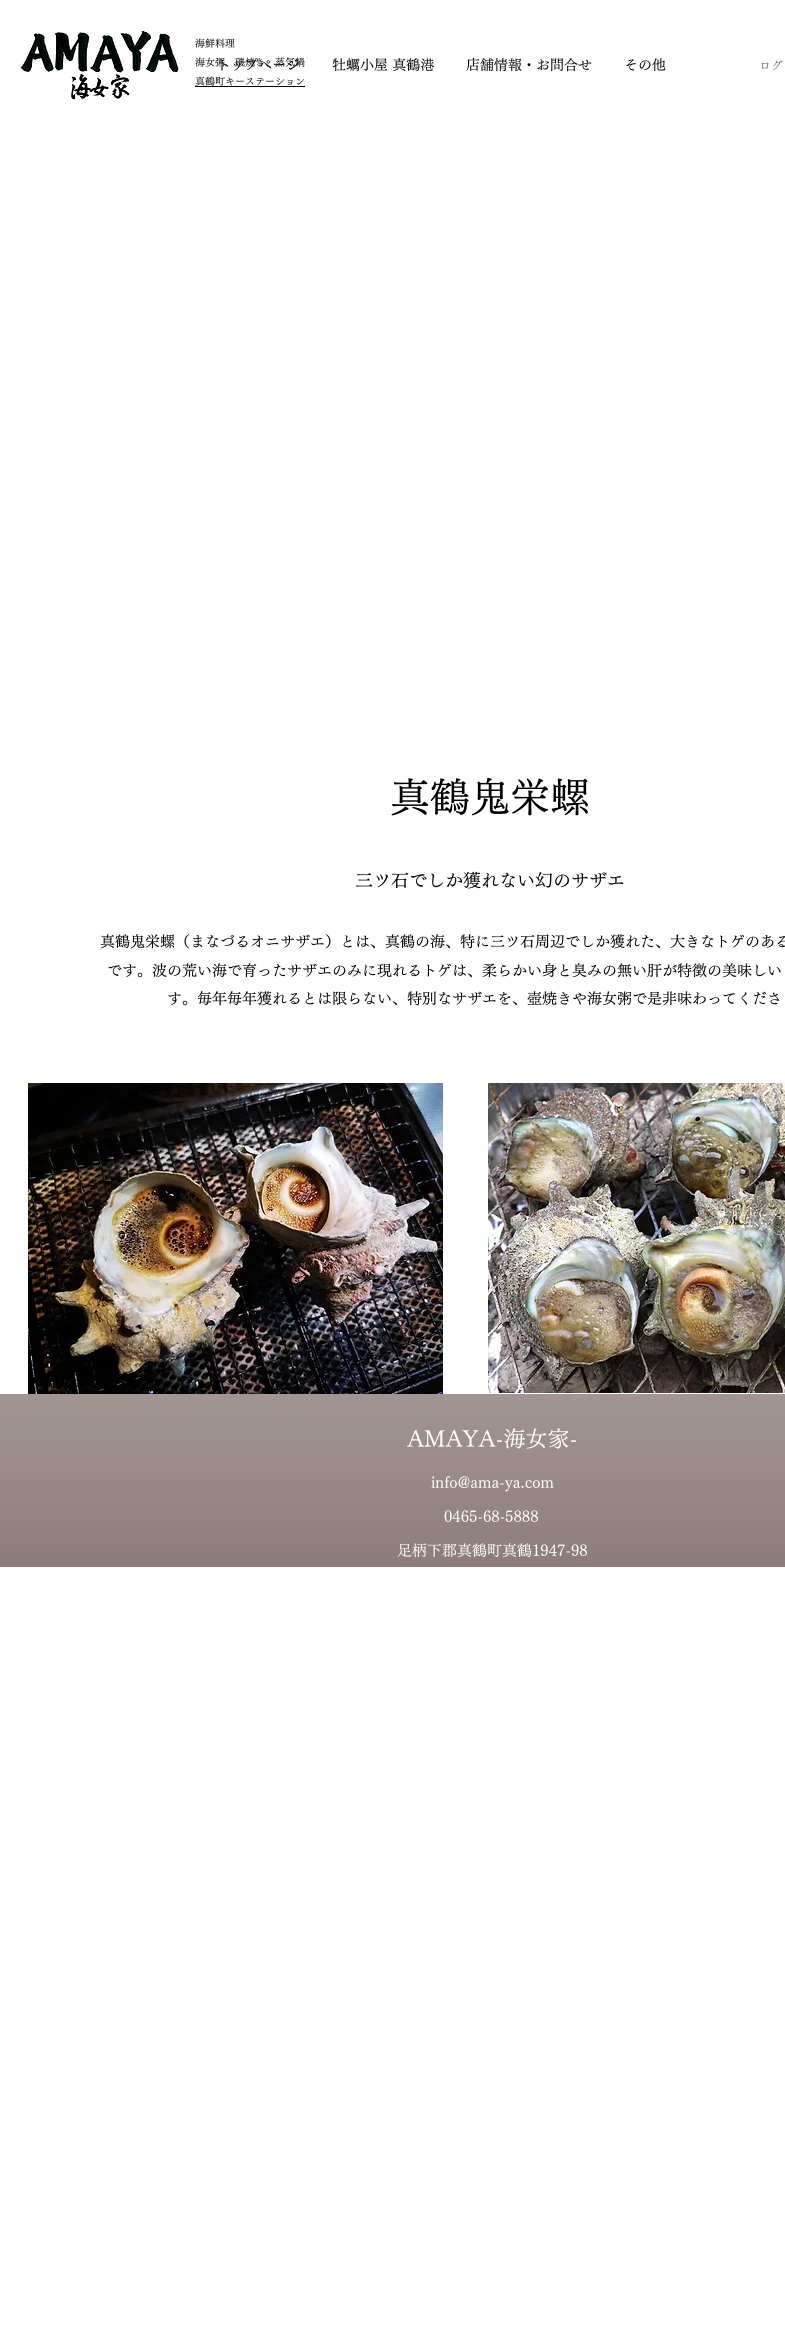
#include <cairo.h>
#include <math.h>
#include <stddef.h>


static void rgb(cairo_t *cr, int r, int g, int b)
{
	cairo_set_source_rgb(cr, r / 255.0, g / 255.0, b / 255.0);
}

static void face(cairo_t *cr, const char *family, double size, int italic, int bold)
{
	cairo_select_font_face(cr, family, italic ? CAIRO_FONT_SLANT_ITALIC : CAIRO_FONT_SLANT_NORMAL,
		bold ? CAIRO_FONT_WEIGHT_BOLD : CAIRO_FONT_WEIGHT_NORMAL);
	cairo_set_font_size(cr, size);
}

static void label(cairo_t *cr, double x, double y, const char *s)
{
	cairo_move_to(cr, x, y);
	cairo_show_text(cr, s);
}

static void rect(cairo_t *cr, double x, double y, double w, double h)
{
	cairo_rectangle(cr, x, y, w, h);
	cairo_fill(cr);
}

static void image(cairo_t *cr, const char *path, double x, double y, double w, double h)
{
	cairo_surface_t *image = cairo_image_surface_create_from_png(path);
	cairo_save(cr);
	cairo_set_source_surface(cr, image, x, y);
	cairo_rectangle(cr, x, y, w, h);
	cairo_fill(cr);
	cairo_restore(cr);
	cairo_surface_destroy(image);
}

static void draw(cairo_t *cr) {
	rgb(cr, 255, 255, 255);
	cairo_paint(cr);
	image(cr, "image0.png", 20, 30, 159, 70);
	face(cr, "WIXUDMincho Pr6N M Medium", 10, 0, 0);
	rgb(cr, 0, 0, 0);
	label(cr, 195, 47, "海鮮料理");
	label(cr, 195, 66, "海女粥、磯焼き、蒸気鍋");
	label(cr, 195, 85, "真鶴町キーステーション");
	rect(cr, 195, 86, 110, 1);
	face(cr, "WIXUDMincho Pr6N M Medium", 14, 0, 0);
	label(cr, 216, 70, "トップページ");
	label(cr, 332, 70, "牡蠣小屋 真鶴港");
	label(cr, 466, 70, "店舗情報・お問合せ");
	label(cr, 624, 70, "その他");
	face(cr, "WIXUDMincho Pr6N M Medium", 12, 0, 0);
	rgb(cr, 129, 113, 110);
	label(cr, 759, 70, "ログ");
	face(cr, "WIXUDMincho Pr6N M Medium", 40, 0, 0);
	rgb(cr, 0, 0, 0);
	label(cr, 390, 812, "真鶴鬼栄螺");
	face(cr, "WIXUDMincho Pr6N M Medium", 18, 0, 0);
	label(cr, 355, 887, "三ツ石でしか獲れない幻のサザエ");
	face(cr, "WIXUDMincho Pr6N M Medium", 15, 0, 0);
	label(cr, 100, 947, "真鶴鬼栄螺（まなづるオニサザエ）とは、真鶴の海、特に三ツ石周辺でしか獲れた、大きなトゲのある");
	label(cr, 107, 976, "です。波の荒い海で育ったサザエのみに現れるトゲは、柔らかい身と臭みの無い肝が特徴の美味しい");
	label(cr, 167, 1004, "す。毎年毎年獲れるとは限らない、特別なサザエを、壺焼きや海女粥で是非味わってくださ");
	image(cr, "image1.png", 28, 1083, 415, 311);
	image(cr, "image2.png", 488, 1083, 297, 310);
	rgb(cr, 129, 113, 110);
	rect(cr, 0, 1394, 785, 173);
	image(cr, "image3.png", 0, 1394, 785, 173);
	face(cr, "WIXUDMincho Pr6N M Medium", 22, 0, 0);
	rgb(cr, 255, 255, 255);
	label(cr, 407, 1447, "AMAYA-海女家-");
	face(cr, "WIXUDMincho Pr6N M Medium", 15, 0, 0);
	label(cr, 431, 1488, "info@ama-ya.com");
	label(cr, 444, 1522, "0465-68-5888");
	label(cr, 397, 1556, "足柄下郡真鶴町真鶴1947-98");
}

int main(void) {
	cairo_surface_t *surface = cairo_image_surface_create(CAIRO_FORMAT_RGB24, 785, 2344);
	cairo_t *cr = cairo_create(surface);
	cairo_font_options_t *options = cairo_font_options_create();
	cairo_font_options_set_hint_metrics(options, CAIRO_HINT_METRICS_OFF);
	cairo_font_options_set_hint_style(options, CAIRO_HINT_STYLE_NONE);
	cairo_set_font_options(cr, options);
	cairo_set_miter_limit(cr, 4);
	draw(cr);
	cairo_surface_write_to_png(surface, "render.png");
	cairo_font_options_destroy(options);
	cairo_destroy(cr);
	cairo_surface_destroy(surface);
	return 0;
}
